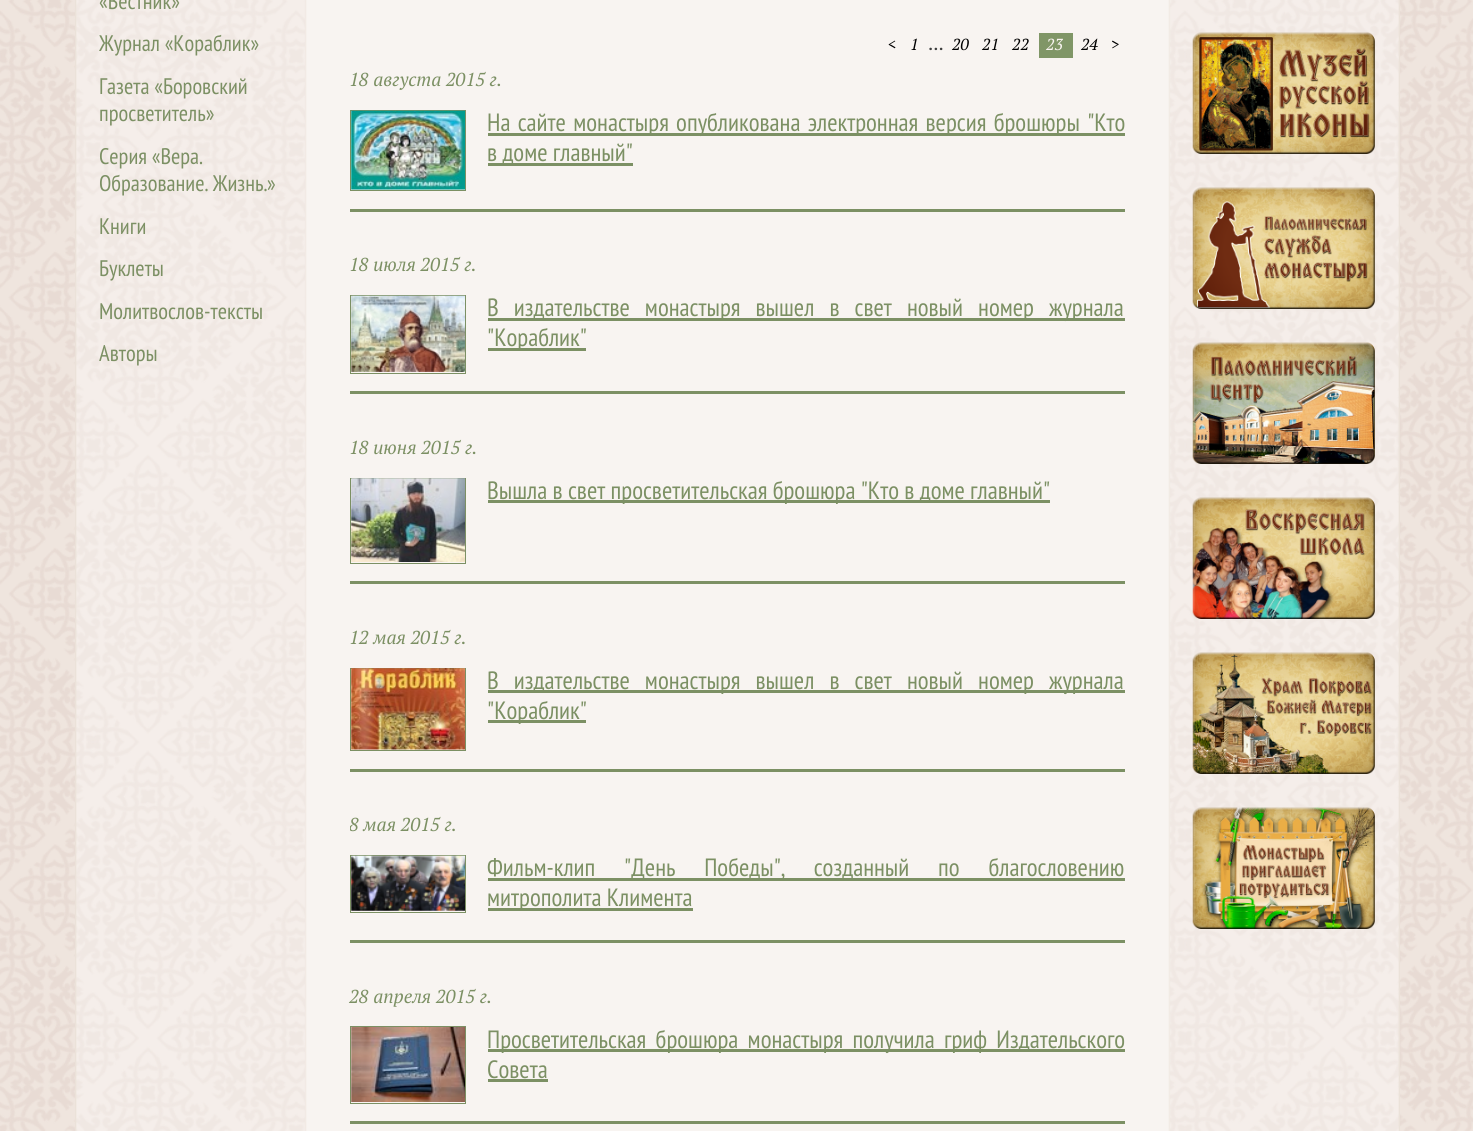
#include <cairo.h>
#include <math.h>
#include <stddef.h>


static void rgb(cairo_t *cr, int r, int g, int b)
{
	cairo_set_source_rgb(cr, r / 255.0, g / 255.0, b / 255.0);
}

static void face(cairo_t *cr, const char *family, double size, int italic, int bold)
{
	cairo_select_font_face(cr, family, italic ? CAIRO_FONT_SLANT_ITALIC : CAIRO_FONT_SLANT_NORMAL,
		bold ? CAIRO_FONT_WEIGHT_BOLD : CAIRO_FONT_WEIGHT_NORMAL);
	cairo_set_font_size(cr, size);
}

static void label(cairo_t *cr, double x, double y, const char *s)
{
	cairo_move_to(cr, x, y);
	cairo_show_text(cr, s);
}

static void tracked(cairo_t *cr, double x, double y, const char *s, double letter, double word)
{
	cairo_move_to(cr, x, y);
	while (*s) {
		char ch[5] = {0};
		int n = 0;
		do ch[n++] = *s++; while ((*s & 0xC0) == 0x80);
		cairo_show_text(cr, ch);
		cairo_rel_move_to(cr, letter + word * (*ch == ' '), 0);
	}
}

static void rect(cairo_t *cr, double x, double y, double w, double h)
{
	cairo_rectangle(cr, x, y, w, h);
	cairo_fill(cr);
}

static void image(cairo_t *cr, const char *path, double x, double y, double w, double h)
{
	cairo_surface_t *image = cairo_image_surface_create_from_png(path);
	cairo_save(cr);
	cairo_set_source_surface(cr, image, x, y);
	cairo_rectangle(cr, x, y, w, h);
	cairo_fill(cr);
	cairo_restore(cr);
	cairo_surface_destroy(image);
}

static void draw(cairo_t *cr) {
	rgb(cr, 239, 229, 222);
	cairo_paint(cr);
	image(cr, "image0.png", 0, 0, 1473, 1131);
	image(cr, "image1.png", 75, 0, 1325, 1131);
	face(cr, "PT Sans Narrow", 22.5, 0, 0);
	rgb(cr, 124, 144, 100);
	label(cr, 99, 9, "«Вестник»");
	label(cr, 99, 51, "Журнал «Кораблик»");
	label(cr, 99, 94, "Газета «Боровский");
	label(cr, 99, 121, "просветитель»");
	label(cr, 99, 164, "Серия «Вера.");
	label(cr, 99, 191, "Образование. Жизнь.»");
	label(cr, 99, 234, "Книги");
	label(cr, 99, 276, "Буклеты");
	label(cr, 99, 319, "Молитвослов-тексты");
	label(cr, 99, 361, "Авторы");
	face(cr, "PT Serif", 16, 1, 0);
	rgb(cr, 0, 0, 0);
	label(cr, 888, 50, "<");
	label(cr, 910, 50, "1");
	face(cr, "PT Serif", 18.75, 0, 0);
	rgb(cr, 62, 62, 62);
	label(cr, 928, 50, "...");
	face(cr, "PT Serif", 16, 1, 0);
	rgb(cr, 0, 0, 0);
	label(cr, 952, 50, "20");
	label(cr, 982, 50, "21");
	label(cr, 1012, 50, "22");
	rgb(cr, 128, 150, 103);
	rect(cr, 1039, 33, 34, 25);
	rgb(cr, 249, 244, 241);
	label(cr, 1046, 50, "23");
	rgb(cr, 0, 0, 0);
	label(cr, 1081, 50, "24");
	label(cr, 1111, 50, ">");
	rgb(cr, 124, 144, 100);
	rect(cr, 350, 209, 775, 3);
	face(cr, "PT Serif", 18.75, 1, 0);
	label(cr, 349, 86, "18 августа 2015 г.");
	cairo_rectangle(cr, 350.5, 110.5, 115, 80);
	cairo_set_line_width(cr, 1);
	cairo_stroke(cr);
	image(cr, "image2.png", 351, 110, 114, 80);
	rect(cr, 488, 133, 637, 3);
	face(cr, "PT Sans Narrow", 25, 0, 0);
	tracked(cr, 487, 131, "На сайте монастыря опубликована электронная версия брошюры \"Кто", 0, 2);
	rect(cr, 488, 163, 145, 3);
	label(cr, 487, 161, "в доме главный\"");
	rect(cr, 350, 391, 775, 3);
	face(cr, "PT Serif", 18.75, 1, 0);
	label(cr, 349, 271, "18 июля 2015 г.");
	cairo_rectangle(cr, 350.5, 295.5, 115, 78);
	cairo_stroke(cr);
	image(cr, "image3.png", 351, 295, 114, 77);
	rect(cr, 488, 318, 637, 3);
	face(cr, "PT Sans Narrow", 25, 0, 0);
	tracked(cr, 487, 316, "В издательстве монастыря вышел в свет новый номер журнала", 0, 9.75);
	rect(cr, 488, 348, 98, 3);
	label(cr, 487, 346, "\"Кораблик\"");
	rect(cr, 350, 581, 775, 3);
	face(cr, "PT Serif", 18.75, 1, 0);
	label(cr, 349, 454, "18 июня 2015 г.");
	cairo_rectangle(cr, 350.5, 478.5, 115, 85);
	cairo_stroke(cr);
	image(cr, "image4.png", 351, 478, 114, 84);
	rect(cr, 488, 500, 562, 3);
	face(cr, "PT Sans Narrow", 25, 0, 0);
	label(cr, 487, 499, "Вышла в свет просветительская брошюра \"Кто в доме главный\"");
	rect(cr, 350, 769, 775, 3);
	face(cr, "PT Serif", 18.75, 1, 0);
	label(cr, 349, 644, "12 мая 2015 г.");
	cairo_rectangle(cr, 350.5, 668.5, 115, 82);
	cairo_stroke(cr);
	image(cr, "image5.png", 351, 668, 114, 82);
	rect(cr, 488, 690, 637, 3);
	face(cr, "PT Sans Narrow", 25, 0, 0);
	tracked(cr, 487, 689, "В издательстве монастыря вышел в свет новый номер журнала", 0, 9.75);
	rect(cr, 488, 720, 98, 3);
	label(cr, 487, 719, "\"Кораблик\"");
	rect(cr, 350, 940, 775, 3);
	cairo_save(cr);
	cairo_rectangle(cr, 350, 815, 775, 125);
	cairo_clip(cr);
	face(cr, "PT Serif", 18.75, 1, 0);
	label(cr, 349, 831, "8 мая 2015 г.");
	cairo_restore(cr);
	cairo_rectangle(cr, 350.5, 855.5, 115, 57);
	cairo_stroke(cr);
	image(cr, "image6.png", 351, 855, 114, 56);
	rect(cr, 488, 878, 637, 3);
	tracked(cr, 487, 876, "Фильм-клип \"День Победы\", созданный по благословению", 0, 23.5);
	rect(cr, 488, 908, 205, 3);
	label(cr, 487, 906, "митрополита Климента");
	rect(cr, 350, 1121, 775, 3);
	face(cr, "PT Serif", 18.75, 1, 0);
	label(cr, 349, 1003, "28 апреля 2015 г.");
	cairo_rectangle(cr, 350.5, 1026.5, 115, 77);
	cairo_stroke(cr);
	image(cr, "image7.png", 351, 1027, 114, 75);
	rect(cr, 488, 1049, 637, 3);
	face(cr, "PT Sans Narrow", 25, 0, 0);
	tracked(cr, 487, 1048, "Просветительская брошюра монастыря получила гриф Издательского", 0, 4);
	label(cr, 487, 1078, "Совета");
	rect(cr, 488, 1079, 60, 3);
	image(cr, "image8.png", 1192, 32, 183, 122);
	image(cr, "image9.png", 1192, 187, 183, 122);
	image(cr, "image10.png", 1192, 342, 183, 122);
	image(cr, "image11.png", 1192, 497, 183, 122);
	image(cr, "image12.png", 1192, 652, 183, 122);
	image(cr, "image13.png", 1192, 807, 183, 122);
}

int main(void) {
	cairo_surface_t *surface = cairo_image_surface_create(CAIRO_FORMAT_RGB24, 1473, 1131);
	cairo_t *cr = cairo_create(surface);
	cairo_font_options_t *options = cairo_font_options_create();
	cairo_font_options_set_hint_metrics(options, CAIRO_HINT_METRICS_OFF);
	cairo_font_options_set_hint_style(options, CAIRO_HINT_STYLE_NONE);
	cairo_set_font_options(cr, options);
	cairo_set_miter_limit(cr, 4);
	draw(cr);
	cairo_surface_write_to_png(surface, "render.png");
	cairo_font_options_destroy(options);
	cairo_destroy(cr);
	cairo_surface_destroy(surface);
	return 0;
}
